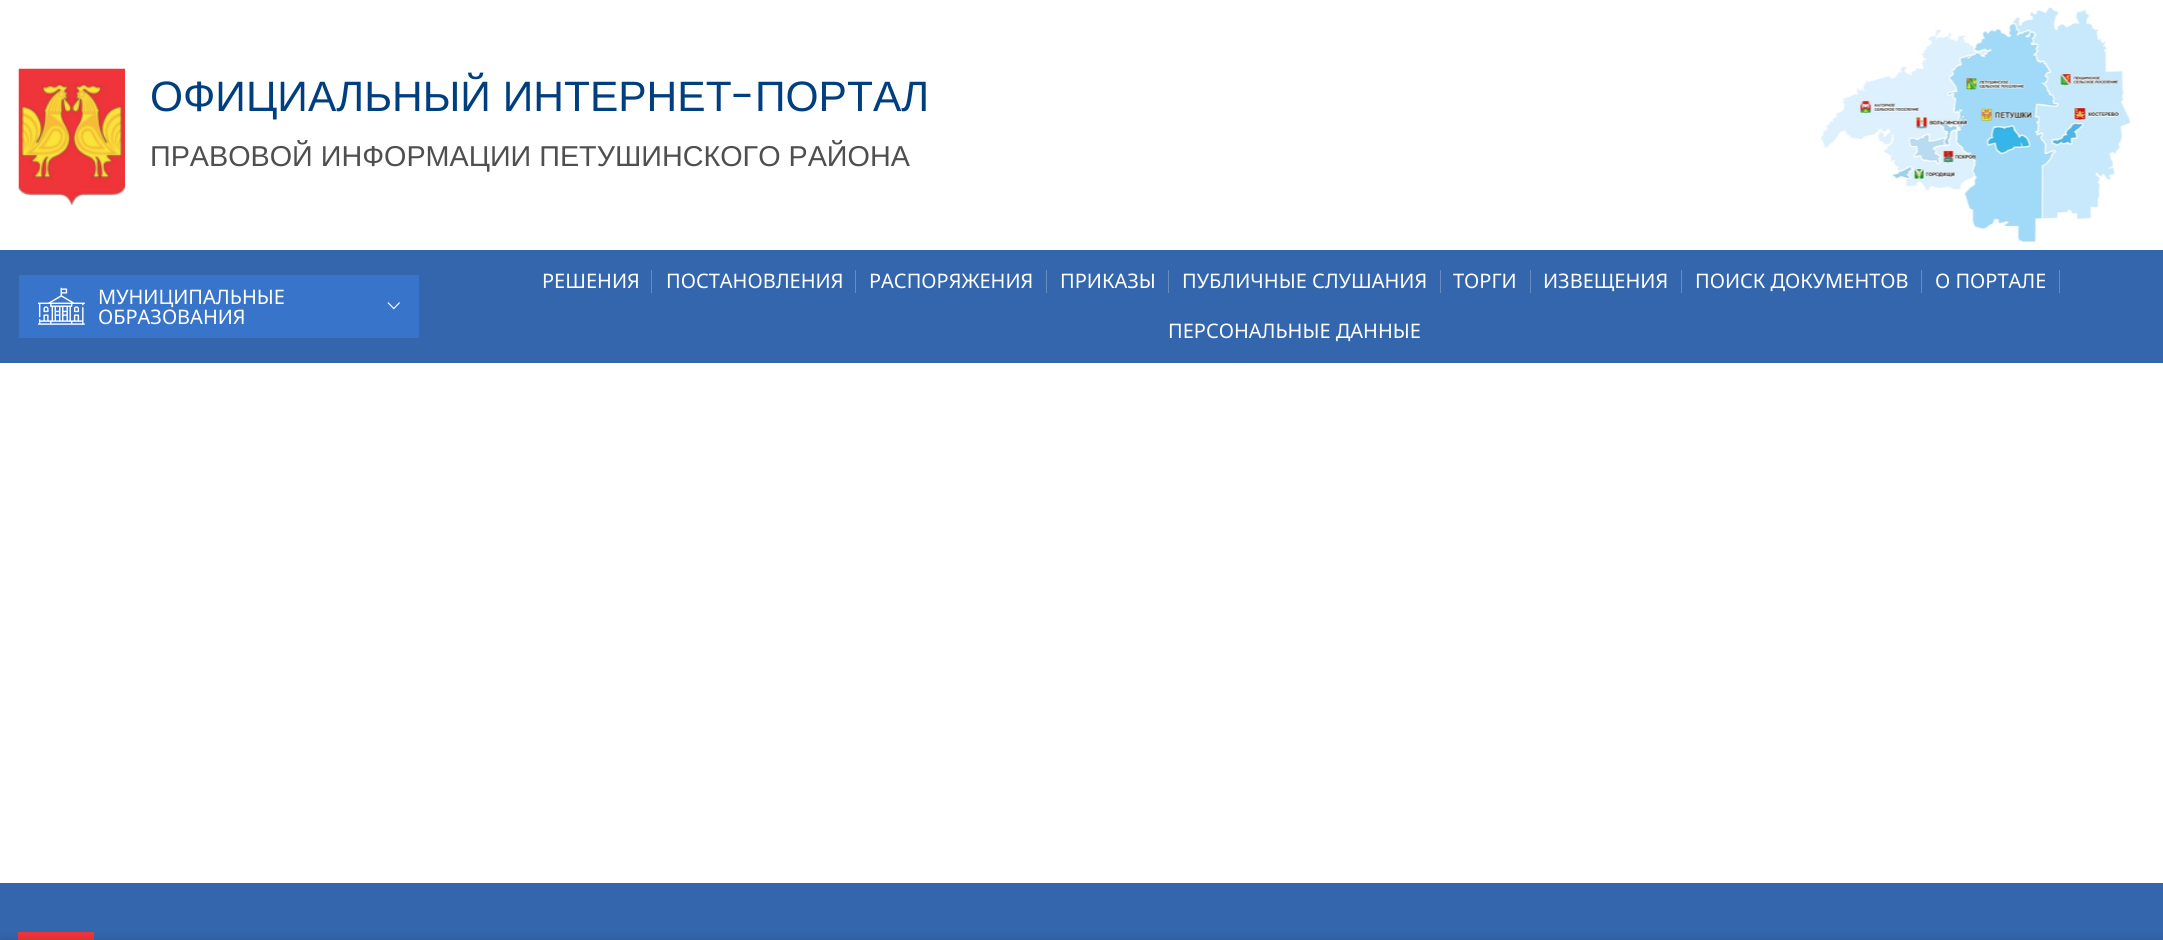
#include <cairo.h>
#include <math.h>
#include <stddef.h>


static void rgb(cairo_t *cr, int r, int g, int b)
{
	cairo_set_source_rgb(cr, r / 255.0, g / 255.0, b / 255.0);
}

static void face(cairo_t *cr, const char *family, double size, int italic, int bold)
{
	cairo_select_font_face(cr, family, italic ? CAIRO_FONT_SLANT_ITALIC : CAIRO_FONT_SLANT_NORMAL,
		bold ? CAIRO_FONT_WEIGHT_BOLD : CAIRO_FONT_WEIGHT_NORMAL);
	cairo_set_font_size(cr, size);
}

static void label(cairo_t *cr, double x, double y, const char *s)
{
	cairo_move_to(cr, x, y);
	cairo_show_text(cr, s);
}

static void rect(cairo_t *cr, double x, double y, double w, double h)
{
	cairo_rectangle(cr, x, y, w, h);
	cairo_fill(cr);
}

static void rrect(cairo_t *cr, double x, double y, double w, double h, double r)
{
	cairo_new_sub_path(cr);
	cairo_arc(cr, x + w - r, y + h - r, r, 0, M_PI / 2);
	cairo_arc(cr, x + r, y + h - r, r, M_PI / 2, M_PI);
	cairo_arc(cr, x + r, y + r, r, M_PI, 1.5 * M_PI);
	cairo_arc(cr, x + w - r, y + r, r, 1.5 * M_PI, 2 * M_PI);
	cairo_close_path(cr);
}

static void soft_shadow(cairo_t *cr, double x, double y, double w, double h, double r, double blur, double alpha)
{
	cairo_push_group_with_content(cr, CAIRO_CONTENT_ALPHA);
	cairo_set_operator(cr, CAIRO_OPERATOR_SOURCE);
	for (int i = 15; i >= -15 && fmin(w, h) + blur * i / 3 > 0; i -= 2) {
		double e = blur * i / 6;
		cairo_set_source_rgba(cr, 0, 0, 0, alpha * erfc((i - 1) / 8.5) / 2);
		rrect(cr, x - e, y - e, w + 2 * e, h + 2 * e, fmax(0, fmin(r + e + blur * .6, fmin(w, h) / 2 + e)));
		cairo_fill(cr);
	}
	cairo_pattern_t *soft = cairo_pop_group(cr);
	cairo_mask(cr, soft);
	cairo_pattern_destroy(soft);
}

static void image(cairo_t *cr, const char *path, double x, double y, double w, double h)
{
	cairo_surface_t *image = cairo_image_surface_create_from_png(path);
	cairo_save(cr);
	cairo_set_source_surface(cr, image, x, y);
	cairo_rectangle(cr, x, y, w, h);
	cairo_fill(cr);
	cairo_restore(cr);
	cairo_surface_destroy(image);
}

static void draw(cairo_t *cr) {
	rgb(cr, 255, 255, 255);
	cairo_paint(cr);
	image(cr, "image0.png", 18, 68, 107, 138);
	face(cr, "Liberation Sans", 42.5, 0, 0);
	rgb(cr, 0, 63, 127);
	label(cr, 150, 111, "ОФИЦИАЛЬНЫЙ ИНТЕРНЕТ");
	face(cr, "Poppins", 42.5, 0, 0);
	label(cr, 731, 111, "-");
	face(cr, "Liberation Sans", 42.5, 0, 0);
	label(cr, 755, 111, "ПОРТАЛ");
	face(cr, "Liberation Sans", 28.75, 0, 0);
	rgb(cr, 79, 79, 79);
	label(cr, 150, 166, "ПРАВОВОЙ ИНФОРМАЦИИ ПЕТУШИНСКОГО РАЙОНА");
	image(cr, "image1.png", 1820, 7, 311, 236);
	rgb(cr, 52, 102, 173);
	rect(cr, 0, 250, 2163, 113);
	rgb(cr, 56, 116, 201);
	rect(cr, 19, 275, 400, 63);
	image(cr, "image2.png", 38, 287, 47, 38);
	face(cr, "Noto Sans", 20, 0, 0);
	rgb(cr, 255, 255, 255);
	label(cr, 98, 304, "МУНИЦИПАЛЬНЫЕ");
	label(cr, 98, 324, "ОБРАЗОВАНИЯ");
	image(cr, "image3.png", 387, 302, 13, 8);
	label(cr, 542, 288, "РЕШЕНИЯ");
	rgb(cr, 103, 140, 194);
	rect(cr, 651, 270, 1, 23);
	rgb(cr, 255, 255, 255);
	label(cr, 666, 288, "ПОСТАНОВЛЕНИЯ");
	rgb(cr, 103, 140, 194);
	rect(cr, 855, 270, 1, 23);
	rgb(cr, 255, 255, 255);
	label(cr, 869, 288, "РАСПОРЯЖЕНИЯ");
	rgb(cr, 103, 140, 194);
	rect(cr, 1046, 270, 1, 23);
	rgb(cr, 255, 255, 255);
	label(cr, 1060, 288, "ПРИКАЗЫ");
	rgb(cr, 103, 140, 194);
	rect(cr, 1168, 270, 1, 23);
	rgb(cr, 255, 255, 255);
	label(cr, 1182, 288, "ПУБЛИЧНЫЕ СЛУШАНИЯ");
	rgb(cr, 103, 140, 194);
	rect(cr, 1440, 270, 1, 23);
	rgb(cr, 255, 255, 255);
	label(cr, 1453, 288, "ТОРГИ");
	rgb(cr, 103, 140, 194);
	rect(cr, 1530, 270, 1, 23);
	rgb(cr, 255, 255, 255);
	label(cr, 1543, 288, "ИЗВЕЩЕНИЯ");
	rgb(cr, 103, 140, 194);
	rect(cr, 1681, 270, 1, 23);
	rgb(cr, 255, 255, 255);
	label(cr, 1695, 288, "ПОИСК ДОКУМЕНТОВ");
	rgb(cr, 103, 140, 194);
	rect(cr, 1921, 270, 1, 23);
	rgb(cr, 255, 255, 255);
	label(cr, 1935, 288, "О ПОРТАЛЕ");
	rgb(cr, 103, 140, 194);
	rect(cr, 2059, 270, 1, 23);
	rgb(cr, 255, 255, 255);
	label(cr, 1168, 338, "ПЕРСОНАЛЬНЫЕ ДАННЫЕ");
	rgb(cr, 52, 102, 173);
	rect(cr, 0, 883, 2163, 57);
	rgb(cr, 239, 53, 58);
	rect(cr, 18, 932, 76, 8);
	rgb(cr, 0, 0, 0);
	soft_shadow(cr, 0, 940, 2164, 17, 0, 5.5, 0.14);
}

int main(void) {
	cairo_surface_t *surface = cairo_image_surface_create(CAIRO_FORMAT_RGB24, 2163, 940);
	cairo_t *cr = cairo_create(surface);
	cairo_font_options_t *options = cairo_font_options_create();
	cairo_font_options_set_hint_metrics(options, CAIRO_HINT_METRICS_OFF);
	cairo_font_options_set_hint_style(options, CAIRO_HINT_STYLE_NONE);
	cairo_set_font_options(cr, options);
	cairo_set_miter_limit(cr, 4);
	draw(cr);
	cairo_surface_write_to_png(surface, "render.png");
	cairo_font_options_destroy(options);
	cairo_destroy(cr);
	cairo_surface_destroy(surface);
	return 0;
}
